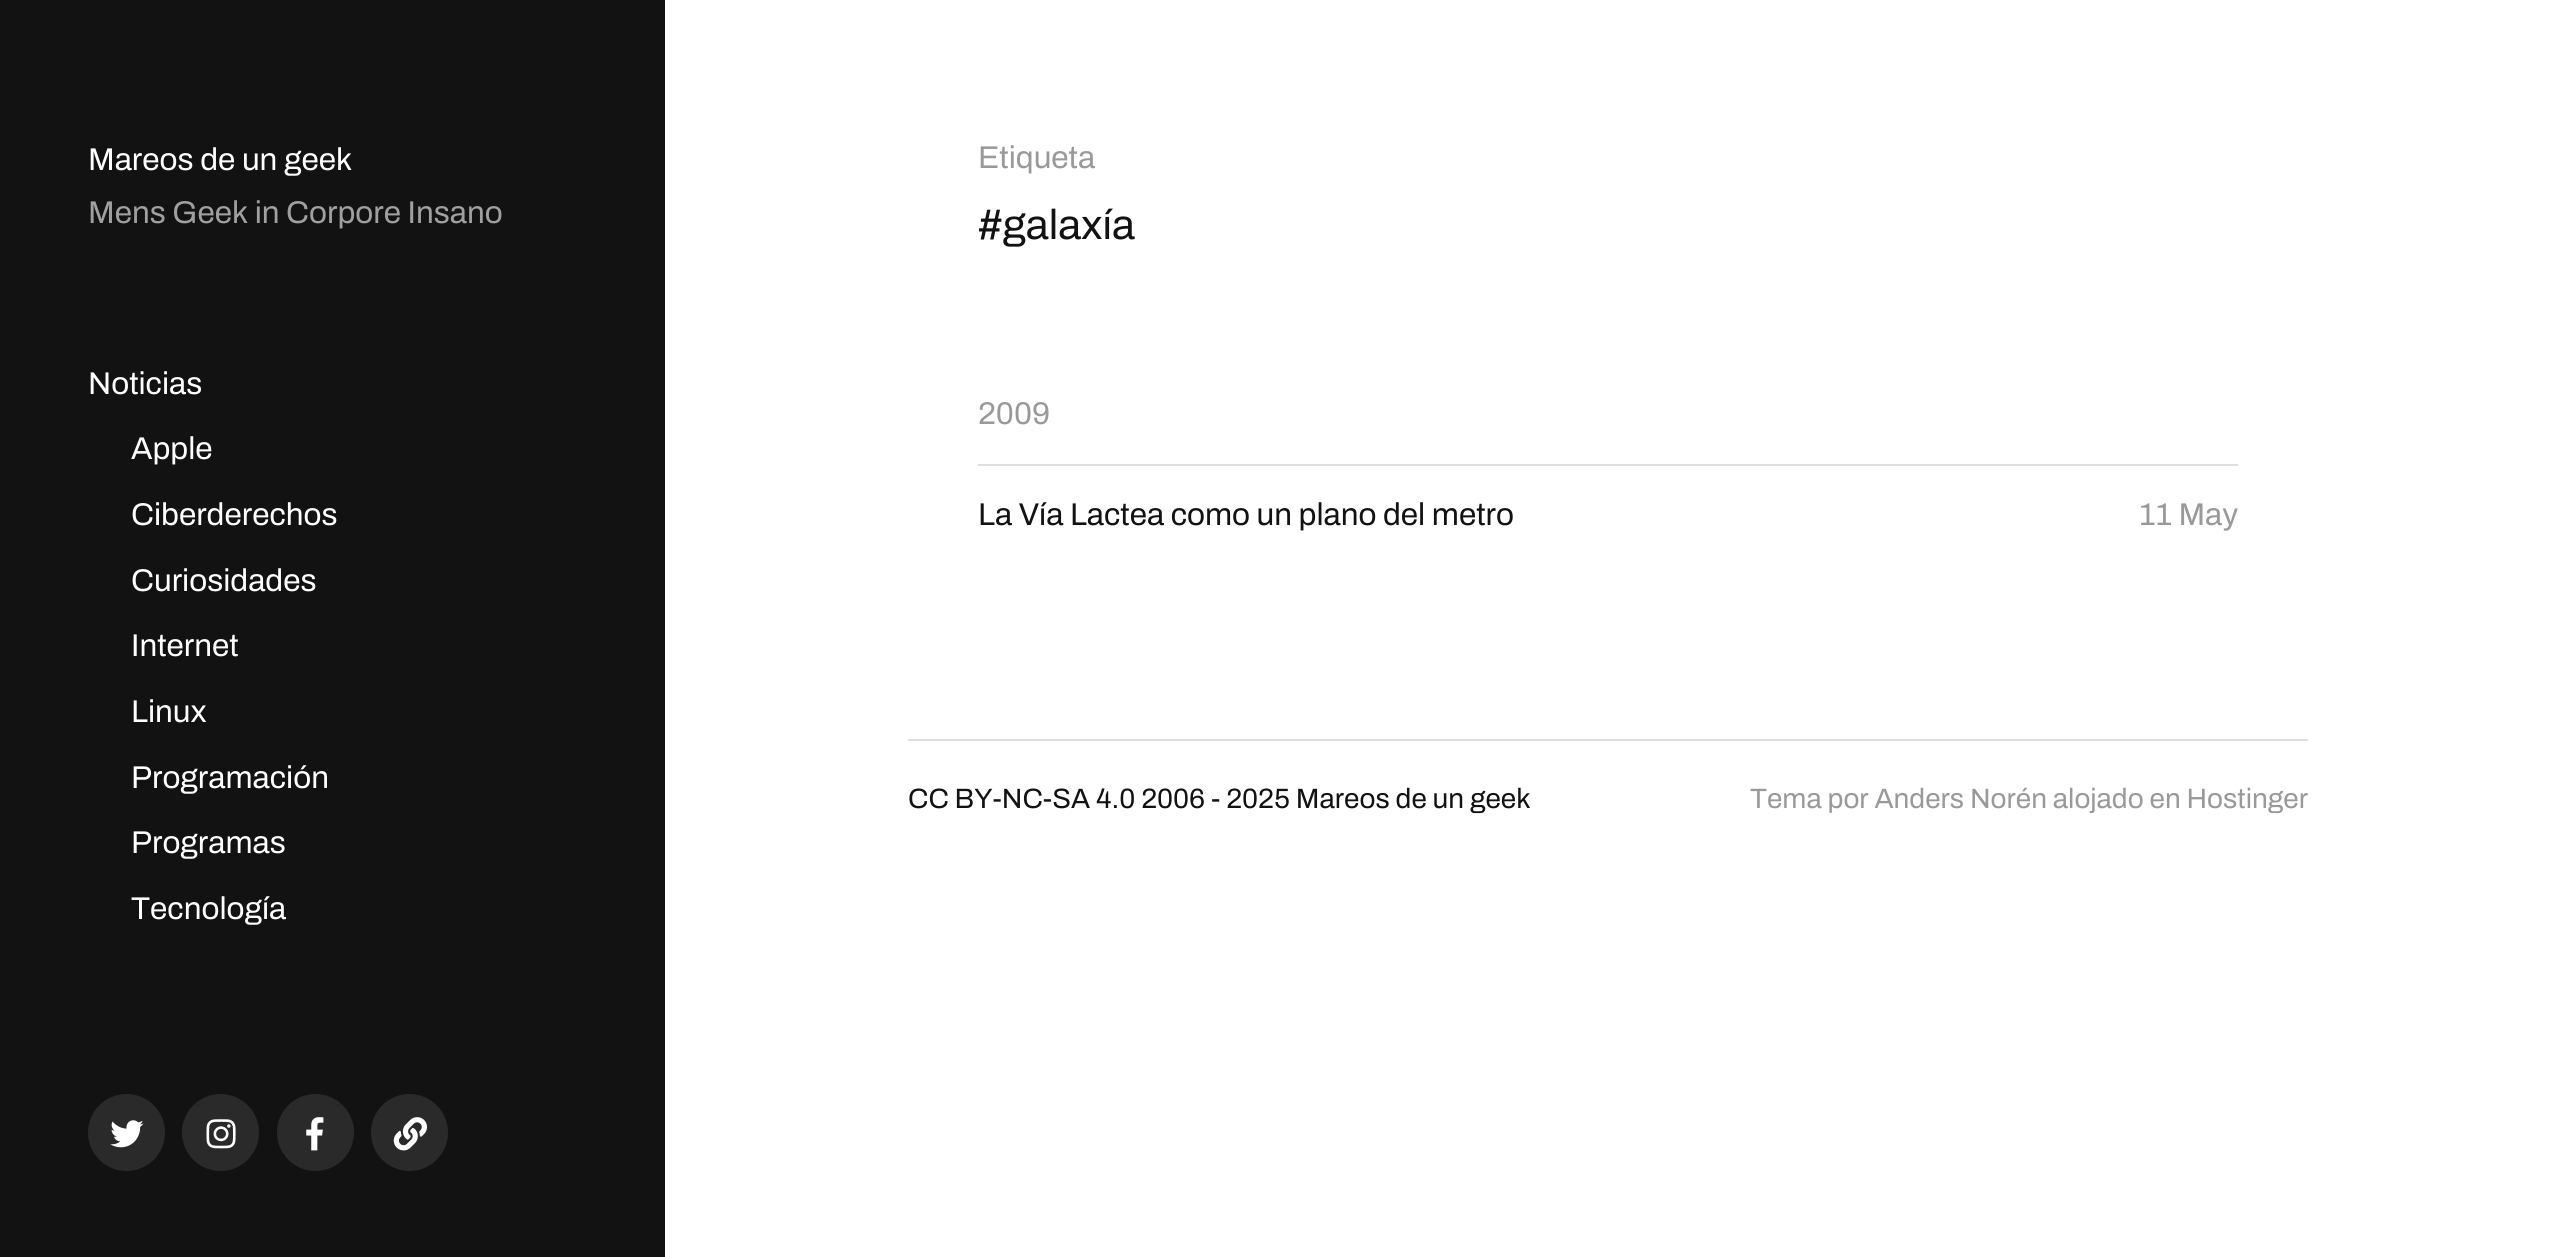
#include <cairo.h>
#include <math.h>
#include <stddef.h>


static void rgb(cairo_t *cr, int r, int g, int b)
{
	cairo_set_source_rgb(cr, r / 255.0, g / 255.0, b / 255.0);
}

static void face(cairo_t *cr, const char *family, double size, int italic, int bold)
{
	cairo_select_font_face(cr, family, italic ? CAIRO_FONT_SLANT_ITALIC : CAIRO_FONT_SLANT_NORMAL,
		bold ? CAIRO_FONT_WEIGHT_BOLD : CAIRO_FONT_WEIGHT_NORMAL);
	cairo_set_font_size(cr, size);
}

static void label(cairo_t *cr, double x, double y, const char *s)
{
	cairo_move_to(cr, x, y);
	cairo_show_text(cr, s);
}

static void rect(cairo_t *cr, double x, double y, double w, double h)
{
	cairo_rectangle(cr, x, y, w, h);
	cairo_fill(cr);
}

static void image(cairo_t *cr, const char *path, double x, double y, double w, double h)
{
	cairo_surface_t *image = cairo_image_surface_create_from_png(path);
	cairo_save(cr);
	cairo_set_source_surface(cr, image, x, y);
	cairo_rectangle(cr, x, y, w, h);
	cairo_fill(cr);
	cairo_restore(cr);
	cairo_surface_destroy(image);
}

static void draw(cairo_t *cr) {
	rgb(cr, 255, 255, 255);
	cairo_paint(cr);
	rgb(cr, 18, 18, 18);
	rect(cr, 0, 0, 665, 1257);
	face(cr, "Archivo SemiBold", 31.5, 0, 0);
	rgb(cr, 255, 255, 255);
	label(cr, 88, 170, "Mareos de un geek");
	rgb(cr, 160, 160, 160);
	label(cr, 88, 223, "Mens Geek in Corpore Insano");
	rgb(cr, 255, 255, 255);
	label(cr, 88, 394, "Noticias");
	label(cr, 131, 459, "Apple");
	label(cr, 131, 525, "Ciberderechos");
	label(cr, 131, 591, "Curiosidades");
	label(cr, 131, 656, "Internet");
	label(cr, 131, 722, "Linux");
	label(cr, 131, 788, "Programación");
	label(cr, 131, 853, "Programas");
	label(cr, 131, 919, "Tecnología");
	rgb(cr, 42, 42, 42);
	cairo_new_path(cr);
	cairo_arc(cr, 126.5, 1132.5, 38.5, 0, 2 * M_PI);
	cairo_fill(cr);
	image(cr, "image0.png", 110, 1120, 34, 28);
	cairo_arc(cr, 220.5, 1132.5, 38.5, 0, 2 * M_PI);
	cairo_fill(cr);
	image(cr, "image1.png", 206, 1119, 30, 30);
	cairo_arc(cr, 315.5, 1132.5, 38.5, 0, 2 * M_PI);
	cairo_fill(cr);
	image(cr, "image2.png", 306, 1117, 18, 34);
	cairo_arc(cr, 409.5, 1132.5, 38.5, 0, 2 * M_PI);
	cairo_fill(cr);
	image(cr, "image3.png", 393, 1117, 34, 34);
	rgb(cr, 153, 153, 155);
	label(cr, 978, 168, "Etiqueta");
	face(cr, "Archivo SemiBold", 42, 0, 0);
	rgb(cr, 18, 18, 18);
	label(cr, 978, 239, "#galaxía");
	face(cr, "Archivo SemiBold", 31.5, 0, 0);
	rgb(cr, 153, 153, 155);
	label(cr, 978, 424, "2009");
	rgb(cr, 223, 223, 224);
	rect(cr, 978, 464, 1260, 2);
	rgb(cr, 18, 18, 18);
	label(cr, 978, 525, "La Vía Lactea como un plano del metro");
	rgb(cr, 153, 153, 155);
	label(cr, 2139, 525, "11 May");
	rgb(cr, 223, 223, 224);
	rect(cr, 908, 739, 1400, 2);
	face(cr, "Archivo SemiBold", 28, 0, 0);
	rgb(cr, 18, 18, 18);
	label(cr, 908, 808, "CC BY-NC-SA 4.0 2006 - 2025 Mareos de un geek");
	rgb(cr, 153, 153, 155);
	label(cr, 1750, 808, "Tema por Anders Norén alojado en Hostinger");
}

int main(void) {
	cairo_surface_t *surface = cairo_image_surface_create(CAIRO_FORMAT_RGB24, 2551, 1257);
	cairo_t *cr = cairo_create(surface);
	cairo_font_options_t *options = cairo_font_options_create();
	cairo_font_options_set_hint_metrics(options, CAIRO_HINT_METRICS_OFF);
	cairo_font_options_set_hint_style(options, CAIRO_HINT_STYLE_NONE);
	cairo_set_font_options(cr, options);
	cairo_set_miter_limit(cr, 4);
	draw(cr);
	cairo_surface_write_to_png(surface, "render.png");
	cairo_font_options_destroy(options);
	cairo_destroy(cr);
	cairo_surface_destroy(surface);
	return 0;
}
